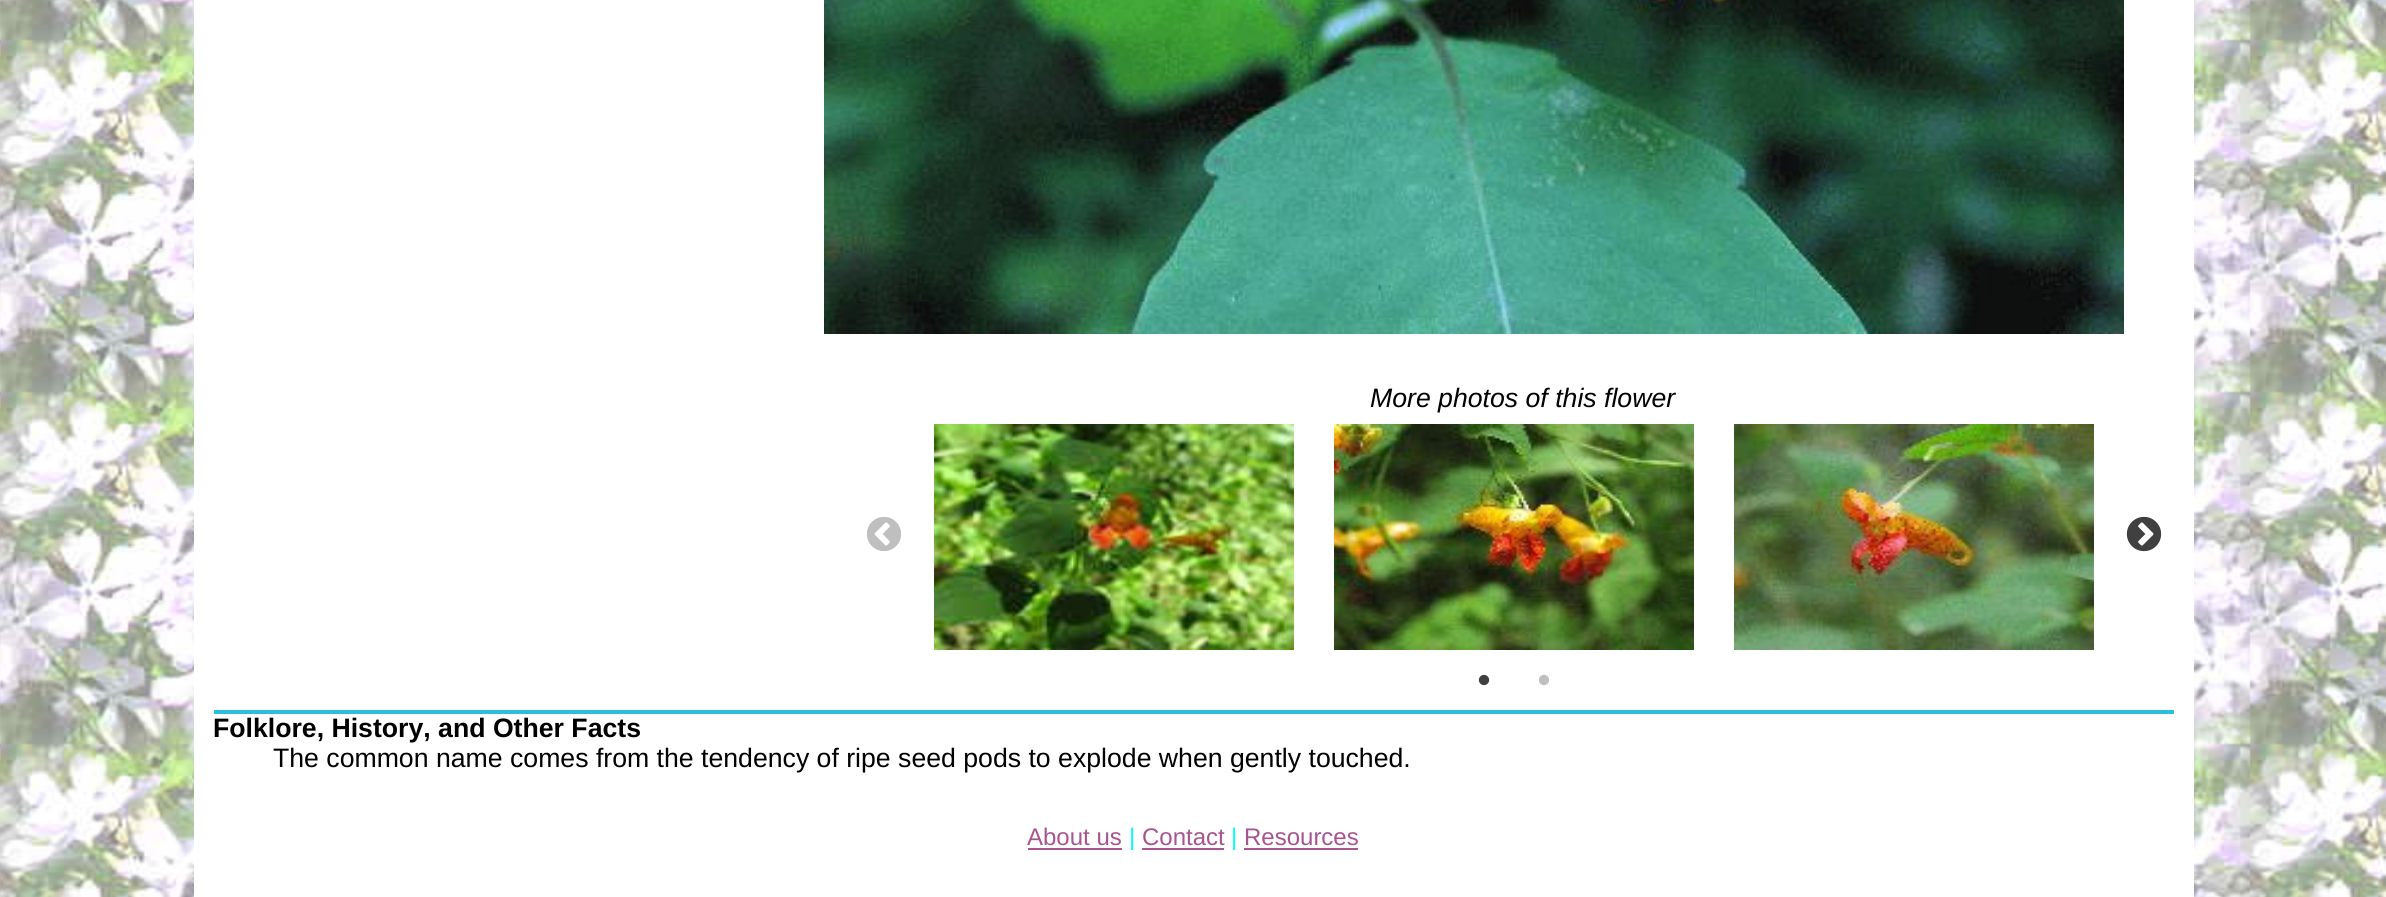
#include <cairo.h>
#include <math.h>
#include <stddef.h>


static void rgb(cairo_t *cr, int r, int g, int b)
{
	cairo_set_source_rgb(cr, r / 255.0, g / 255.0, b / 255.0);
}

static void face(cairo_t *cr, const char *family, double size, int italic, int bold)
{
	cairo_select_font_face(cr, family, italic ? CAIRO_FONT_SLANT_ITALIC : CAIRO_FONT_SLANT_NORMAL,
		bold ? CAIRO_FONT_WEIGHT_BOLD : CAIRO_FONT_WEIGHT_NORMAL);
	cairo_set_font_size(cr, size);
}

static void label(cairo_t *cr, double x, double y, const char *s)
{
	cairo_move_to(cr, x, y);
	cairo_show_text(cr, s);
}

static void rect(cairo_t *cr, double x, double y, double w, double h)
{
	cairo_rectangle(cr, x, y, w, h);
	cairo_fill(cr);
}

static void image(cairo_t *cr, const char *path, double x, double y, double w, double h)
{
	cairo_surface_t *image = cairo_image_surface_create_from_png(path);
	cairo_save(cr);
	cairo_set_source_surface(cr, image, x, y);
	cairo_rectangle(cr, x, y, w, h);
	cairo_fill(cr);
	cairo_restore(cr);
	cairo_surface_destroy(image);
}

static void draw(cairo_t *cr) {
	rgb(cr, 255, 255, 255);
	cairo_paint(cr);
	image(cr, "image0.png", 0, 0, 2386, 897);
	rgb(cr, 255, 255, 255);
	rect(cr, 194, 0, 2000, 897);
	image(cr, "image1.png", 824, 0, 1300, 334);
	face(cr, "Liberation Sans", 26.65, 1, 0);
	rgb(cr, 0, 0, 0);
	label(cr, 1370, 407, "More photos of this flower");
	image(cr, "image2.png", 867, 517, 34, 34);
	image(cr, "image3.png", 934, 424, 360, 226);
	image(cr, "image4.png", 1334, 424, 360, 226);
	image(cr, "image5.png", 1734, 424, 360, 226);
	image(cr, "image6.png", 2126, 516, 36, 36);
	image(cr, "image7.png", 1478, 674, 12, 12);
	image(cr, "image8.png", 1539, 675, 10, 10);
	rgb(cr, 44, 190, 225);
	rect(cr, 214, 710, 1960, 4);
	face(cr, "Liberation Sans", 26.65, 0, 1);
	rgb(cr, 0, 0, 0);
	label(cr, 213, 737, "Folklore, History, and Other Facts");
	face(cr, "Liberation Sans", 26.65, 0, 0);
	label(cr, 273, 767, "The common name comes from the tendency of ripe seed pods to explode when gently touched.");
	face(cr, "Liberation Sans", 24, 0, 0);
	rgb(cr, 167, 84, 144);
	label(cr, 1027, 845, "About us");
	rect(cr, 1028, 848, 94, 2);
	rgb(cr, 0, 255, 255);
	label(cr, 1129, 845, "|");
	rgb(cr, 167, 84, 144);
	label(cr, 1142, 845, "Contact");
	rect(cr, 1142, 848, 82, 2);
	rgb(cr, 0, 255, 255);
	label(cr, 1231, 845, "|");
	rgb(cr, 167, 84, 144);
	label(cr, 1244, 845, "Resources");
	rect(cr, 1244, 848, 114, 2);
}

int main(void) {
	cairo_surface_t *surface = cairo_image_surface_create(CAIRO_FORMAT_RGB24, 2386, 897);
	cairo_t *cr = cairo_create(surface);
	cairo_font_options_t *options = cairo_font_options_create();
	cairo_font_options_set_hint_metrics(options, CAIRO_HINT_METRICS_OFF);
	cairo_font_options_set_hint_style(options, CAIRO_HINT_STYLE_NONE);
	cairo_set_font_options(cr, options);
	cairo_set_miter_limit(cr, 4);
	draw(cr);
	cairo_surface_write_to_png(surface, "render.png");
	cairo_font_options_destroy(options);
	cairo_destroy(cr);
	cairo_surface_destroy(surface);
	return 0;
}
